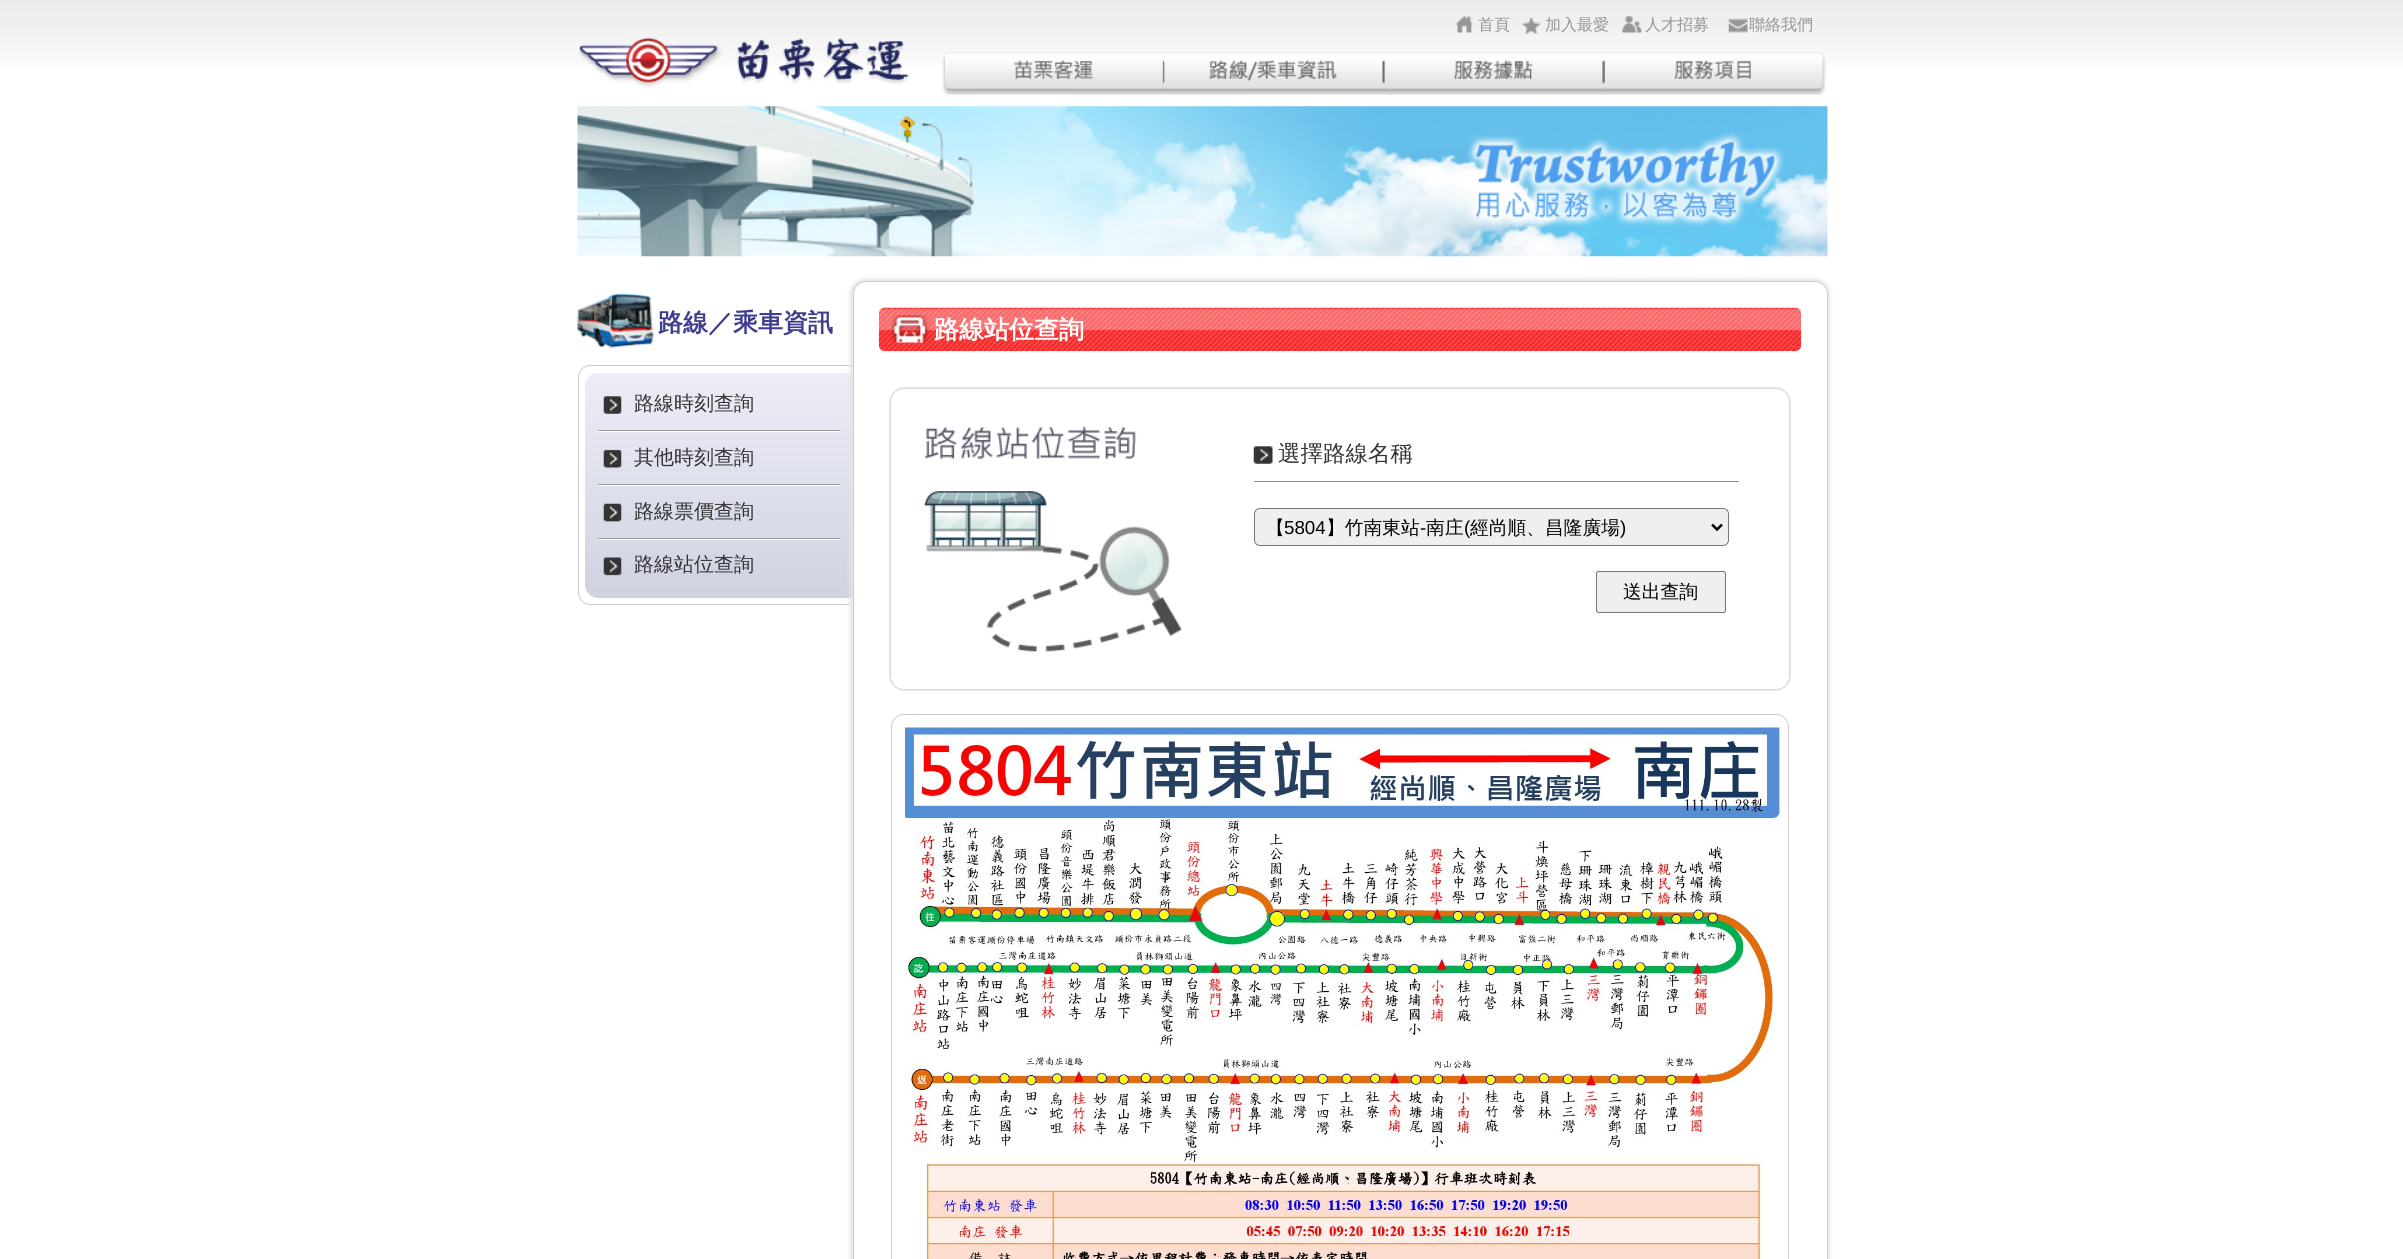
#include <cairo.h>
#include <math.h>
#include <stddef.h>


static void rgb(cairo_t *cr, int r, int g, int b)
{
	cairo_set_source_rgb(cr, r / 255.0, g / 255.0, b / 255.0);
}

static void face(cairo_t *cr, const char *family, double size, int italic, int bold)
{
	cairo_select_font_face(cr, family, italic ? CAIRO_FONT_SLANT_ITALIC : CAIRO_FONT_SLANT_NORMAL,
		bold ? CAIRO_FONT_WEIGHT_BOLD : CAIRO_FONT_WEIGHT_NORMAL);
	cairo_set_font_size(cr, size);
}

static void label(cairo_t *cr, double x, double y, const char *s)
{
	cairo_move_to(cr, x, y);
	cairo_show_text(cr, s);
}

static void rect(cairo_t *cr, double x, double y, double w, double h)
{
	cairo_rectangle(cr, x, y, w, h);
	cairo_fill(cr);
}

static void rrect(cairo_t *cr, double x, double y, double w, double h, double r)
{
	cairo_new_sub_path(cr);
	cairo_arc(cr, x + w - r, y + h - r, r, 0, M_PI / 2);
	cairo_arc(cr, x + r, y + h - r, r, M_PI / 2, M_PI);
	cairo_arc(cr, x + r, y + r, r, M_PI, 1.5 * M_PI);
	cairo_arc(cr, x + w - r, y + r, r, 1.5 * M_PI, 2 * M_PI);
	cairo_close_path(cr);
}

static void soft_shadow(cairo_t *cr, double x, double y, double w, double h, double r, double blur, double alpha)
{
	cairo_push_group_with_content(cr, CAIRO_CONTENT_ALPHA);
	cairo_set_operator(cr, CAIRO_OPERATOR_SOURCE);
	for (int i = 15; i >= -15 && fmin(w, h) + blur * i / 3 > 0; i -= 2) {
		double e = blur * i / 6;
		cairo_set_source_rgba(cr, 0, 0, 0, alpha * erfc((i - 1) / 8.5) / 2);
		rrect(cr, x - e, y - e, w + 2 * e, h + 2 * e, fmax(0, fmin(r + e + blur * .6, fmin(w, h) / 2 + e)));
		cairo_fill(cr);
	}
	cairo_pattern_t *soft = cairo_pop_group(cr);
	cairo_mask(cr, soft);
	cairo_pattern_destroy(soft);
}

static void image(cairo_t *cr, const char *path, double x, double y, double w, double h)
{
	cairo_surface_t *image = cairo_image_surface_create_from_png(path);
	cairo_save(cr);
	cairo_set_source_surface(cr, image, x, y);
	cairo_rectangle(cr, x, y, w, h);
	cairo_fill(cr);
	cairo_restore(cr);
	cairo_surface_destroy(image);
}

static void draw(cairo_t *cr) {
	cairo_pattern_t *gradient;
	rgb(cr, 255, 255, 255);
	cairo_paint(cr);
	image(cr, "image0.png", 0, 0, 2403, 65);
	image(cr, "image1.png", 1456, 16, 17, 17);
	face(cr, "WenQuanYi Zen Hei Medium", 16, 0, 0);
	rgb(cr, 150, 150, 150);
	label(cr, 1478, 30, "首頁");
	image(cr, "image2.png", 1522, 17, 19, 17);
	label(cr, 1545, 30, "加入最愛");
	image(cr, "image3.png", 1622, 16, 20, 17);
	label(cr, 1645, 30, "人才招募");
	image(cr, "image4.png", 1728, 18, 20, 15);
	label(cr, 1749, 30, "聯絡我們");
	image(cr, "image5.png", 578, 37, 331, 50);
	image(cr, "image6.png", 942, 52, 884, 43);
	image(cr, "image7.png", 945, 53, 218, 36);
	image(cr, "image8.png", 1163, 53, 221, 36);
	image(cr, "image9.png", 1385, 53, 219, 36);
	image(cr, "image10.png", 1605, 53, 216, 36);
	image(cr, "image11.png", 577, 106, 1251, 151);
	image(cr, "image12.png", 577, 293, 77, 55);
	face(cr, "WenQuanYi Zen Hei", 25, 0, 1);
	rgb(cr, 63, 61, 144);
	label(cr, 658, 331, "路線／乘車資訊");
	rgb(cr, 204, 204, 204);
	cairo_set_fill_rule(cr, CAIRO_FILL_RULE_EVEN_ODD);
	cairo_new_path(cr);
	cairo_move_to(cr, 590, 365);
	cairo_line_to(cr, 852, 365);
	cairo_line_to(cr, 852, 605);
	cairo_line_to(cr, 590, 605);
	cairo_curve_to(cr, 583, 605, 578, 599, 578, 592);
	cairo_line_to(cr, 578, 378);
	cairo_curve_to(cr, 578, 371, 583, 365, 590, 365);
	cairo_close_path(cr);
	cairo_move_to(cr, 590, 366);
	cairo_line_to(cr, 852, 366);
	cairo_line_to(cr, 852, 604);
	cairo_line_to(cr, 590, 604);
	cairo_curve_to(cr, 584, 604, 579, 599, 579, 592);
	cairo_line_to(cr, 579, 378);
	cairo_curve_to(cr, 579, 371, 584, 366, 590, 366);
	cairo_close_path(cr);
	cairo_fill(cr);
	gradient = cairo_pattern_create_linear(719, 373, 719, 598);
	cairo_pattern_add_color_stop_rgba(gradient, 0, 0.925, 0.929, 0.965, 1);
	cairo_pattern_add_color_stop_rgba(gradient, 1, 0.816, 0.824, 0.886, 1);
	cairo_set_source(cr, gradient);
	cairo_pattern_destroy(gradient);
	cairo_new_path(cr);
	cairo_move_to(cr, 598, 373);
	cairo_line_to(cr, 853, 373);
	cairo_line_to(cr, 853, 598);
	cairo_line_to(cr, 598, 598);
	cairo_curve_to(cr, 591, 598, 585, 592, 585, 585);
	cairo_line_to(cr, 585, 386);
	cairo_curve_to(cr, 585, 379, 591, 373, 598, 373);
	cairo_close_path(cr);
	cairo_fill(cr);
	rgb(cr, 153, 153, 153);
	rect(cr, 598, 430, 242, 1);
	image(cr, "image13.png", 603, 396, 19, 18);
	face(cr, "WenQuanYi Zen Hei Medium", 20, 0, 0);
	rgb(cr, 51, 51, 51);
	label(cr, 634, 410, "路線時刻查詢");
	rgb(cr, 255, 255, 255);
	rect(cr, 598, 431, 242, 1);
	rgb(cr, 153, 153, 153);
	rect(cr, 598, 484, 242, 1);
	image(cr, "image14.png", 603, 449, 19, 19);
	rgb(cr, 51, 51, 51);
	label(cr, 634, 464, "其他時刻查詢");
	rgb(cr, 255, 255, 255);
	rect(cr, 598, 485, 242, 1);
	rgb(cr, 153, 153, 153);
	rect(cr, 598, 538, 242, 1);
	image(cr, "image15.png", 603, 503, 19, 19);
	rgb(cr, 51, 51, 51);
	label(cr, 634, 518, "路線票價查詢");
	rgb(cr, 255, 255, 255);
	rect(cr, 598, 539, 242, 1);
	image(cr, "image16.png", 603, 557, 19, 19);
	rgb(cr, 51, 51, 51);
	label(cr, 634, 571, "路線站位查詢");
	cairo_save(cr);
	cairo_new_path(cr);
	cairo_move_to(cr, 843, 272);
	cairo_line_to(cr, 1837, 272);
	cairo_line_to(cr, 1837, 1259);
	cairo_line_to(cr, 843, 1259);
	cairo_close_path(cr);
	cairo_move_to(cr, 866, 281);
	cairo_line_to(cr, 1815, 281);
	cairo_curve_to(cr, 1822, 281, 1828, 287, 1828, 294);
	cairo_line_to(cr, 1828, 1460);
	cairo_curve_to(cr, 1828, 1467, 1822, 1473, 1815, 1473);
	cairo_line_to(cr, 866, 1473);
	cairo_curve_to(cr, 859, 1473, 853, 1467, 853, 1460);
	cairo_line_to(cr, 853, 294);
	cairo_curve_to(cr, 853, 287, 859, 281, 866, 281);
	cairo_close_path(cr);
	cairo_clip(cr);
	rgb(cr, 228, 228, 228);
	soft_shadow(cr, 850, 279, 980, 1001, 15, 2, 1);
	cairo_restore(cr);
	rrect(cr, 853.5, 281.5, 974, 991, 12.5);
	rgb(cr, 204, 204, 204);
	cairo_set_line_width(cr, 1);
	cairo_stroke(cr);
	image(cr, "image17.png", 878, 307, 924, 45);
	image(cr, "image18.png", 891, 315, 38, 28);
	face(cr, "WenQuanYi Zen Hei", 25, 0, 1);
	rgb(cr, 255, 255, 255);
	label(cr, 934, 338, "路線站位查詢");
	cairo_save(cr);
	cairo_new_path(cr);
	cairo_move_to(cr, 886, 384);
	cairo_line_to(cr, 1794, 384);
	cairo_line_to(cr, 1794, 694);
	cairo_line_to(cr, 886, 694);
	cairo_close_path(cr);
	cairo_move_to(cr, 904, 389);
	cairo_line_to(cr, 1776, 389);
	cairo_curve_to(cr, 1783, 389, 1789, 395, 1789, 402);
	cairo_line_to(cr, 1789, 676);
	cairo_curve_to(cr, 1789, 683, 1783, 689, 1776, 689);
	cairo_line_to(cr, 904, 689);
	cairo_curve_to(cr, 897, 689, 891, 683, 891, 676);
	cairo_line_to(cr, 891, 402);
	cairo_curve_to(cr, 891, 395, 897, 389, 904, 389);
	cairo_close_path(cr);
	cairo_clip(cr);
	rgb(cr, 196, 196, 196);
	soft_shadow(cr, 890, 388, 900, 302, 14, 1, 1);
	cairo_restore(cr);
	image(cr, "image19.png", 923, 426, 259, 226);
	image(cr, "image20.png", 1253, 446, 20, 18);
	rgb(cr, 138, 139, 148);
	rect(cr, 1254, 481, 485, 1);
	face(cr, "WenQuanYi Zen Hei Medium", 22.5, 0, 0);
	rgb(cr, 51, 51, 51);
	label(cr, 1278, 461, "選擇路線名稱");
	rgb(cr, 239, 239, 239);
	rrect(cr, 1254.5, 508.5, 474, 37, 5.5);
	cairo_fill_preserve(cr);
	rgb(cr, 118, 118, 118);
	cairo_stroke(cr);
	cairo_new_path(cr);
	cairo_move_to(cr, 1712, 524.5);
	cairo_line_to(cr, 1717, 529.5);
	cairo_line_to(cr, 1722, 524.5);
	rgb(cr, 0, 0, 0);
	cairo_set_line_width(cr, 2.5);
	cairo_stroke(cr);
	face(cr, "WenQuanYi Zen Hei Medium", 18.75, 0, 0);
	label(cr, 1266, 534, "【");
	face(cr, "Liberation Sans", 18.75, 0, 0);
	label(cr, 1284, 534, "5804");
	face(cr, "WenQuanYi Zen Hei Medium", 18.75, 0, 0);
	label(cr, 1326, 534, "】竹南東站");
	face(cr, "Liberation Sans", 18.75, 0, 0);
	label(cr, 1420, 534, "-");
	face(cr, "WenQuanYi Zen Hei Medium", 18.75, 0, 0);
	label(cr, 1426, 534, "南庄");
	face(cr, "Liberation Sans", 18.75, 0, 0);
	label(cr, 1464, 534, "(");
	face(cr, "WenQuanYi Zen Hei Medium", 18.75, 0, 0);
	label(cr, 1470, 534, "經尚順、昌隆廣場");
	face(cr, "Liberation Sans", 18.75, 0, 0);
	label(cr, 1620, 534, ")");
	rgb(cr, 239, 239, 239);
	rrect(cr, 1596.5, 571.5, 129, 41, 2);
	cairo_fill_preserve(cr);
	rgb(cr, 118, 118, 118);
	cairo_set_line_width(cr, 1);
	cairo_stroke(cr);
	face(cr, "WenQuanYi Zen Hei Medium", 18.75, 0, 0);
	rgb(cr, 0, 0, 0);
	label(cr, 1623, 598, "送出查詢");
	rrect(cr, 891.5, 714.5, 897, 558, 12.5);
	rgb(cr, 204, 204, 204);
	cairo_stroke(cr);
	image(cr, "image21.png", 905, 727, 875, 532);
}

int main(void) {
	cairo_surface_t *surface = cairo_image_surface_create(CAIRO_FORMAT_RGB24, 2403, 1259);
	cairo_t *cr = cairo_create(surface);
	cairo_font_options_t *options = cairo_font_options_create();
	cairo_font_options_set_hint_metrics(options, CAIRO_HINT_METRICS_OFF);
	cairo_font_options_set_hint_style(options, CAIRO_HINT_STYLE_NONE);
	cairo_set_font_options(cr, options);
	cairo_set_miter_limit(cr, 4);
	draw(cr);
	cairo_surface_write_to_png(surface, "render.png");
	cairo_font_options_destroy(options);
	cairo_destroy(cr);
	cairo_surface_destroy(surface);
	return 0;
}
